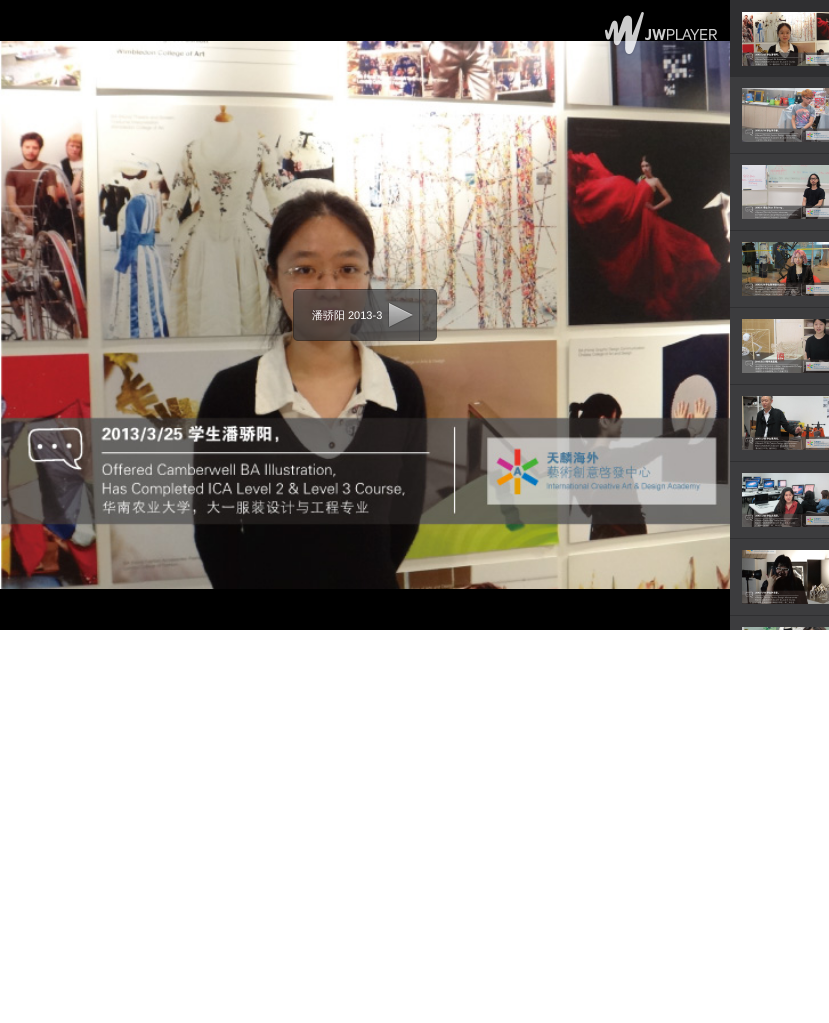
#include <cairo.h>
#include <math.h>
#include <stddef.h>


static void rgb(cairo_t *cr, int r, int g, int b)
{
	cairo_set_source_rgb(cr, r / 255.0, g / 255.0, b / 255.0);
}

static void face(cairo_t *cr, const char *family, double size, int italic, int bold)
{
	cairo_select_font_face(cr, family, italic ? CAIRO_FONT_SLANT_ITALIC : CAIRO_FONT_SLANT_NORMAL,
		bold ? CAIRO_FONT_WEIGHT_BOLD : CAIRO_FONT_WEIGHT_NORMAL);
	cairo_set_font_size(cr, size);
}

static void label(cairo_t *cr, double x, double y, const char *s)
{
	cairo_move_to(cr, x, y);
	cairo_show_text(cr, s);
}

static void rect(cairo_t *cr, double x, double y, double w, double h)
{
	cairo_rectangle(cr, x, y, w, h);
	cairo_fill(cr);
}

static void image(cairo_t *cr, const char *path, double x, double y, double w, double h)
{
	cairo_surface_t *image = cairo_image_surface_create_from_png(path);
	cairo_save(cr);
	cairo_set_source_surface(cr, image, x, y);
	cairo_rectangle(cr, x, y, w, h);
	cairo_fill(cr);
	cairo_restore(cr);
	cairo_surface_destroy(image);
}

static void draw(cairo_t *cr) {
	rgb(cr, 255, 255, 255);
	cairo_paint(cr);
	rgb(cr, 0, 0, 0);
	rect(cr, 0, 0, 730, 630);
	image(cr, "image1.png", 0, 41, 730, 548);
	image(cr, "image0.png", 605, 12, 112, 44);
	image(cr, "image2.png", 293, 289, 144, 52);
	face(cr, "WenQuanYi Zen Hei Medium", 11, 0, 0);
	rgb(cr, 255, 255, 255);
	label(cr, 312, 319, "潘骄阳");
	face(cr, "Liberation Sans", 11, 0, 0);
	label(cr, 348, 319, "2013-3");
	image(cr, "image3.png", 388, 302, 25, 26);
	rgb(cr, 60, 60, 62);
	rect(cr, 730, 77, 99, 553);
	rgb(cr, 47, 47, 49);
	rect(cr, 730, 0, 99, 77);
	image(cr, "image4.png", 742, 12, 87, 54);
	image(cr, "image5.png", 742, 88, 87, 54);
	rect(cr, 730, 153, 99, 1);
	image(cr, "image6.png", 742, 165, 87, 54);
	rect(cr, 730, 230, 99, 1);
	image(cr, "image7.png", 742, 242, 87, 54);
	rect(cr, 730, 307, 99, 1);
	image(cr, "image8.png", 742, 319, 87, 54);
	rect(cr, 730, 384, 99, 1);
	image(cr, "image9.png", 742, 396, 87, 54);
	rect(cr, 730, 461, 99, 1);
	image(cr, "image10.png", 742, 473, 87, 54);
	rect(cr, 730, 538, 99, 1);
	image(cr, "image11.png", 742, 550, 87, 54);
	rect(cr, 730, 615, 99, 1);
	image(cr, "image12.png", 742, 627, 87, 3);
}

int main(void) {
	cairo_surface_t *surface = cairo_image_surface_create(CAIRO_FORMAT_RGB24, 829, 1023);
	cairo_t *cr = cairo_create(surface);
	cairo_font_options_t *options = cairo_font_options_create();
	cairo_font_options_set_hint_metrics(options, CAIRO_HINT_METRICS_OFF);
	cairo_font_options_set_hint_style(options, CAIRO_HINT_STYLE_NONE);
	cairo_set_font_options(cr, options);
	cairo_set_miter_limit(cr, 4);
	draw(cr);
	cairo_surface_write_to_png(surface, "render.png");
	cairo_font_options_destroy(options);
	cairo_destroy(cr);
	cairo_surface_destroy(surface);
	return 0;
}
